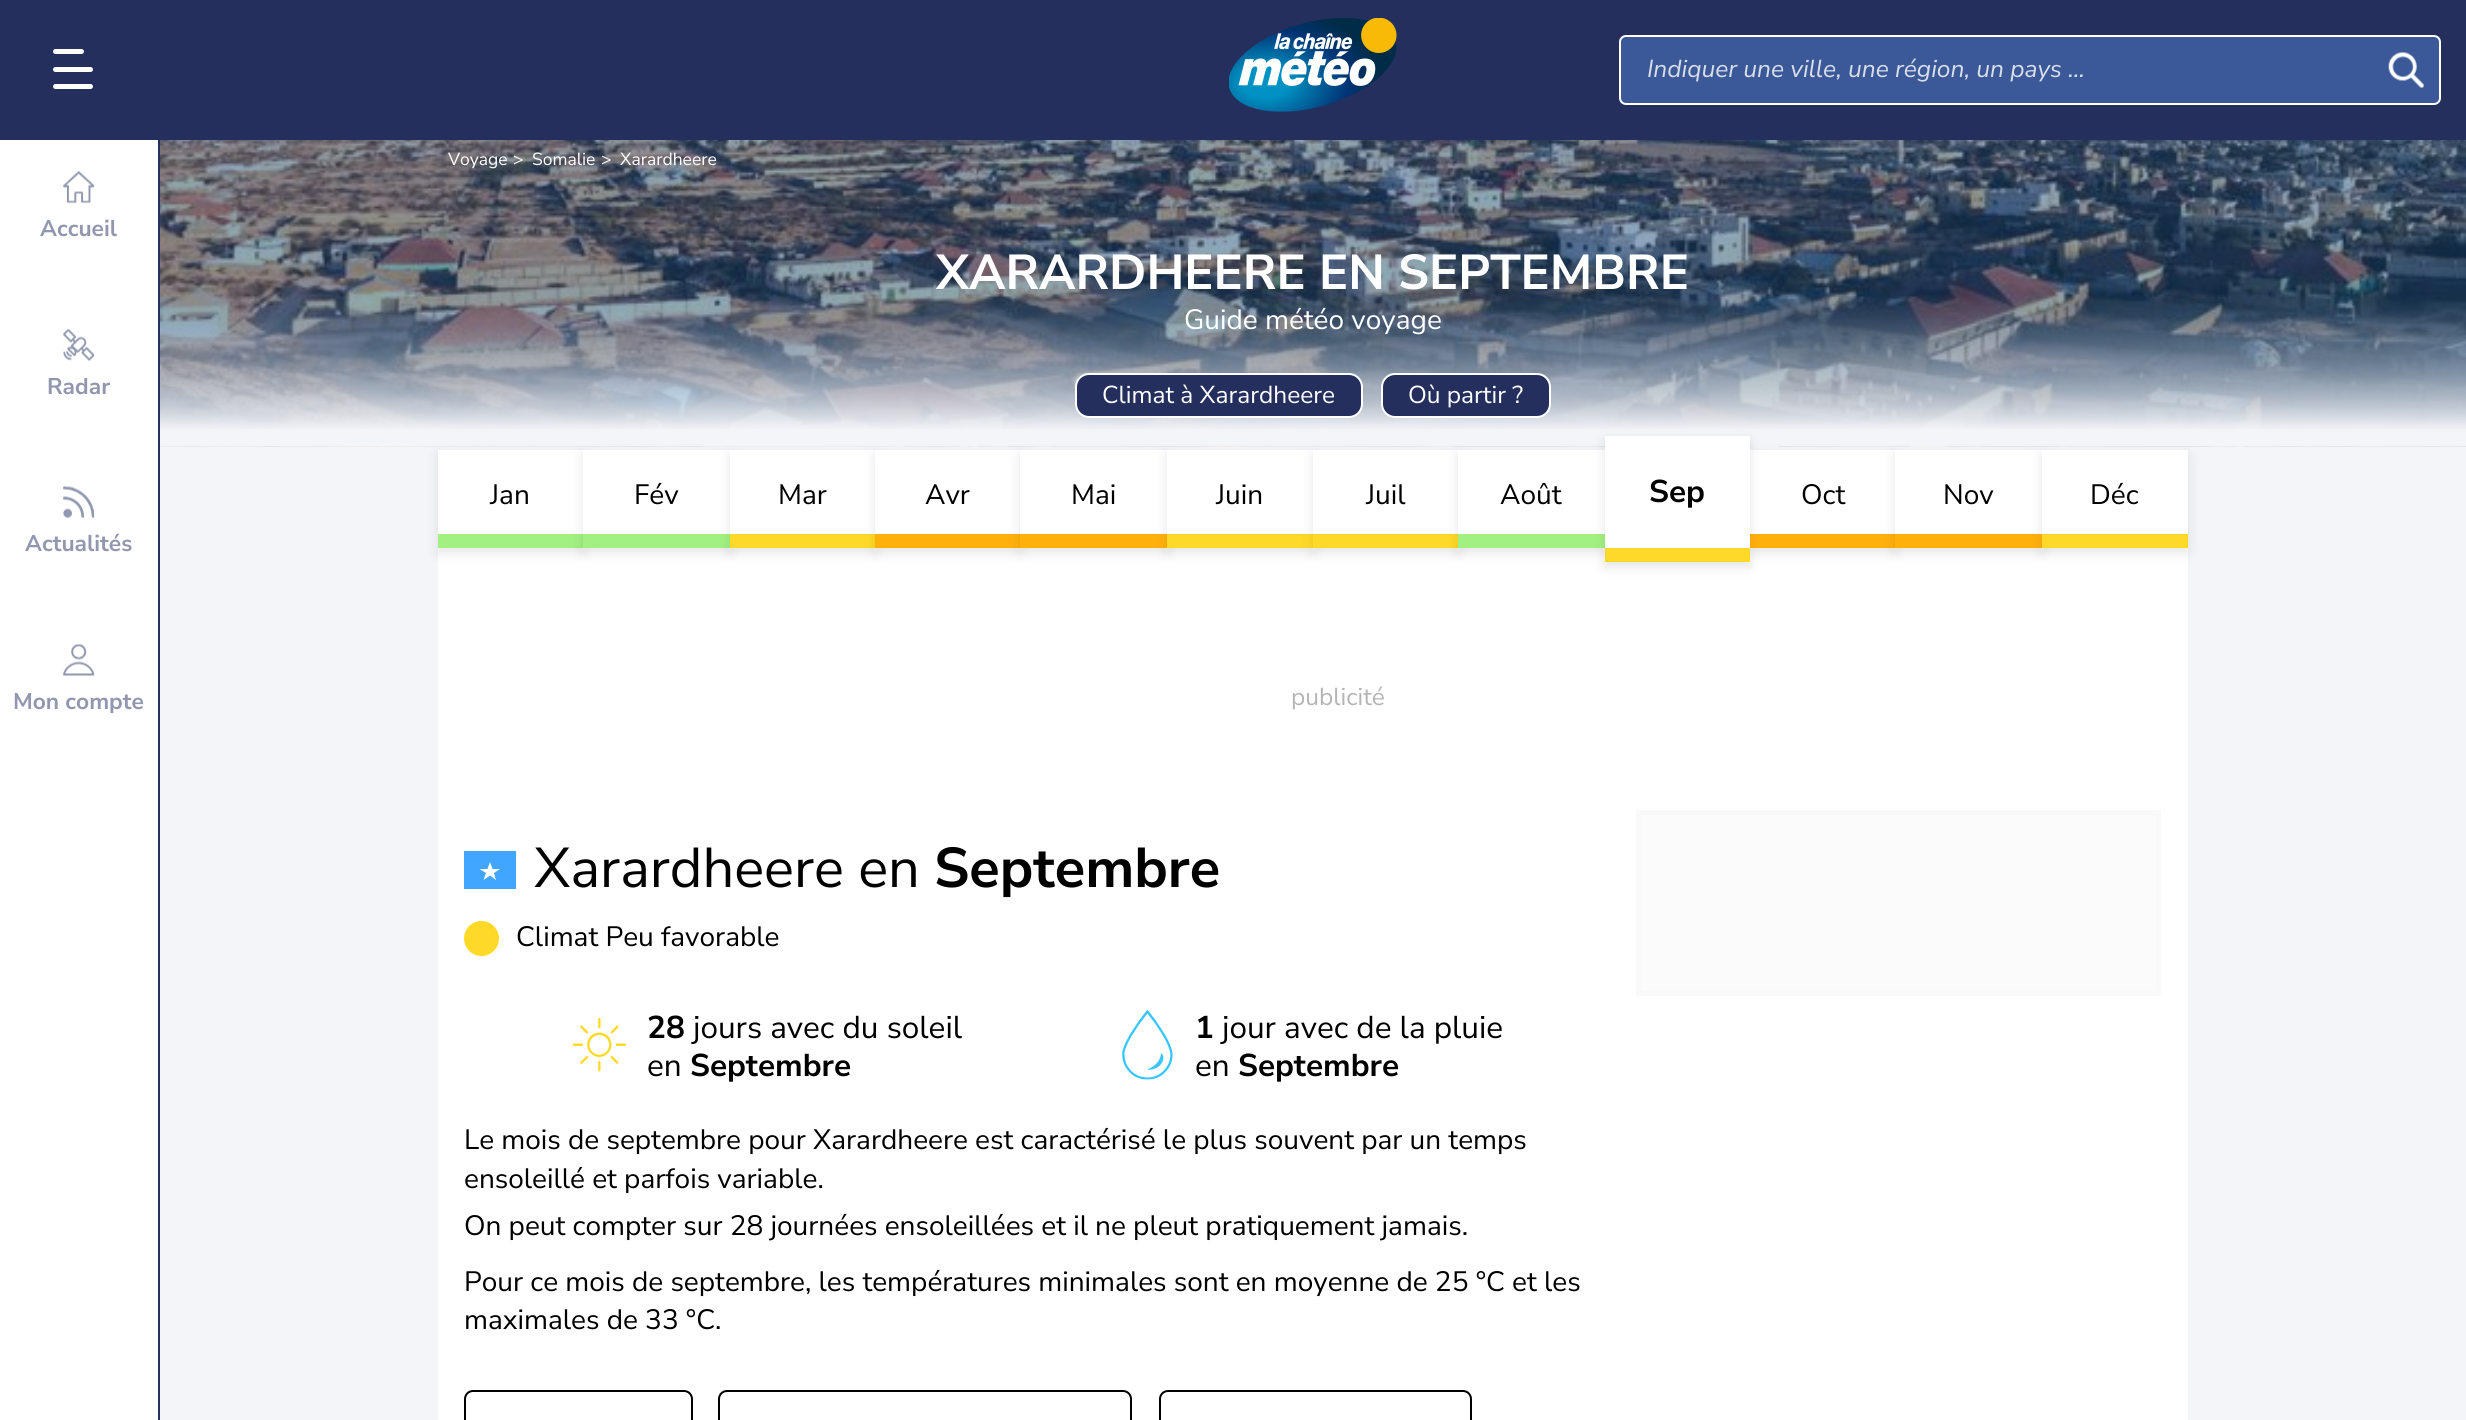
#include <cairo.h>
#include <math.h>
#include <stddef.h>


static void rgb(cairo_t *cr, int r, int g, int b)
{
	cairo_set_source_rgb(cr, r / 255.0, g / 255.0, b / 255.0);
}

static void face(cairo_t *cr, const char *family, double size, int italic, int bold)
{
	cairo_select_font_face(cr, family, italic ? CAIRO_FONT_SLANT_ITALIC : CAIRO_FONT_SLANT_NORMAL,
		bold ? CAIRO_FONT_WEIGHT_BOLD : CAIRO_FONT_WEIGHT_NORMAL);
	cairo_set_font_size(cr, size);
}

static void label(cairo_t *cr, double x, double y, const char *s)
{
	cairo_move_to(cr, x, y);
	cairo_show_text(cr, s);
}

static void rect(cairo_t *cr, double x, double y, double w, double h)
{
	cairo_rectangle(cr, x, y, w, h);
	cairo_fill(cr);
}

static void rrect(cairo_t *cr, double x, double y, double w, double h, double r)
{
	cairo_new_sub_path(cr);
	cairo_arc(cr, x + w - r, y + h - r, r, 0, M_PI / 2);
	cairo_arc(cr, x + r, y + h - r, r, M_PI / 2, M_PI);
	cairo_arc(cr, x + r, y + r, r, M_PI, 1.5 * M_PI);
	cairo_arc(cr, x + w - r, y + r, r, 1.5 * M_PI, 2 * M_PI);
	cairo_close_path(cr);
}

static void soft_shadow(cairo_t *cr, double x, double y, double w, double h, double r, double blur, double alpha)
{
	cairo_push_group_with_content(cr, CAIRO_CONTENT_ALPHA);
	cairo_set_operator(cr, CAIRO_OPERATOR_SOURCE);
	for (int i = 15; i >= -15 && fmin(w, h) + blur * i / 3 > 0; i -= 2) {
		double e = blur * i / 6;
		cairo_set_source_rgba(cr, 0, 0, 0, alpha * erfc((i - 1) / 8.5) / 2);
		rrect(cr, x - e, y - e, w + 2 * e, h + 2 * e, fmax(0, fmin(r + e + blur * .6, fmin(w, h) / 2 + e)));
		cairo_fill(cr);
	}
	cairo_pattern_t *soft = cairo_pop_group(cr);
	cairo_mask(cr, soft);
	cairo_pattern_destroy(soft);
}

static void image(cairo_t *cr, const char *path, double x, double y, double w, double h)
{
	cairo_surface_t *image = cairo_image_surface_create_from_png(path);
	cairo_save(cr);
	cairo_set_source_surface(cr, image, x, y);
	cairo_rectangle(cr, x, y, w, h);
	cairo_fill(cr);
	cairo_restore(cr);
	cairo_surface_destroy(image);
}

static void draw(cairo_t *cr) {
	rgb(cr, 244, 245, 248);
	cairo_paint(cr);
	rgb(cr, 36, 47, 94);
	rect(cr, 0, 0, 2466, 140);
	rgb(cr, 255, 255, 255);
	rrect(cr, 53, 67, 40, 5, 2.5);
	cairo_fill(cr);
	rrect(cr, 53, 49, 31, 5, 2.5);
	cairo_fill(cr);
	rrect(cr, 53, 84, 40, 5, 2.5);
	cairo_fill(cr);
	image(cr, "image0.png", 1229, 18, 168, 94);
	rgb(cr, 59, 89, 152);
	rrect(cr, 1620, 36, 820, 68, 6);
	cairo_fill_preserve(cr);
	rgb(cr, 255, 255, 255);
	cairo_stroke(cr);
	face(cr, "Nunito Sans", 24.5, 1, 0);
	rgb(cr, 216, 222, 234);
	label(cr, 1647, 77, "Indiquer une ville, une région, un pays ...");
	image(cr, "image1.png", 2388, 52, 36, 36);
	rgb(cr, 255, 255, 255);
	rect(cr, 0, 140, 158, 1280);
	rgb(cr, 36, 47, 94);
	rect(cr, 158, 140, 2, 1280);
	image(cr, "image2.png", 63, 171, 32, 33);
	face(cr, "Nunito Sans", 22.75, 0, 1);
	rgb(cr, 146, 151, 175);
	label(cr, 40, 236, "Accueil");
	image(cr, "image3.png", 63, 328, 32, 33);
	label(cr, 47, 394, "Radar");
	image(cr, "image4.png", 63, 486, 32, 33);
	label(cr, 25, 551, "Actualités");
	image(cr, "image5.png", 63, 644, 32, 32);
	label(cr, 13, 709, "Mon compte");
	image(cr, "image6.png", 160, 140, 2306, 307);
	face(cr, "Nunito Sans", 17.5, 0, 0);
	rgb(cr, 255, 255, 255);
	label(cr, 448, 165, "Voyage");
	label(cr, 513, 165, ">");
	label(cr, 532, 165, "Somalie");
	label(cr, 601, 165, ">");
	label(cr, 620, 165, "Xarardheere");
	face(cr, "Nunito Sans", 49, 0, 1);
	label(cr, 936, 289, "XARARDHEERE EN SEPTEMBRE");
	face(cr, "Nunito Sans", 28, 0, 0);
	label(cr, 1184, 329, "Guide météo voyage");
	rgb(cr, 36, 47, 94);
	rrect(cr, 1076, 374, 286, 43, 13);
	cairo_fill_preserve(cr);
	rgb(cr, 255, 255, 255);
	cairo_stroke(cr);
	face(cr, "Nunito Sans", 24.5, 0, 0);
	label(cr, 1102, 403, "Climat à Xarardheere");
	rgb(cr, 36, 47, 94);
	rrect(cr, 1382, 374, 168, 43, 13);
	cairo_fill_preserve(cr);
	rgb(cr, 255, 255, 255);
	cairo_stroke(cr);
	label(cr, 1408, 403, "Où partir ?");
	rect(cr, 438, 548, 1750, 872);
	rgb(cr, 0, 0, 0);
	soft_shadow(cr, 438, 455, 145, 98, 0, 6, 0.1);
	rgb(cr, 255, 255, 255);
	rect(cr, 438, 450, 145, 84);
	rgb(cr, 162, 240, 129);
	rect(cr, 438, 534, 145, 14);
	face(cr, "Nunito Sans", 28, 0, 0);
	rgb(cr, 0, 0, 0);
	label(cr, 490, 504, "Jan");
	rgb(cr, 0, 0, 0);
	soft_shadow(cr, 583, 455, 147, 98, 0, 6, 0.1);
	rgb(cr, 255, 255, 255);
	rect(cr, 583, 450, 147, 84);
	rgb(cr, 162, 240, 129);
	rect(cr, 583, 534, 147, 14);
	rgb(cr, 0, 0, 0);
	label(cr, 634, 504, "Fév");
	rgb(cr, 0, 0, 0);
	soft_shadow(cr, 730, 455, 145, 98, 0, 6, 0.1);
	rgb(cr, 255, 255, 255);
	rect(cr, 730, 450, 145, 84);
	rgb(cr, 255, 217, 40);
	rect(cr, 730, 534, 145, 14);
	rgb(cr, 0, 0, 0);
	label(cr, 778, 504, "Mar");
	rgb(cr, 0, 0, 0);
	soft_shadow(cr, 875, 455, 145, 98, 0, 6, 0.1);
	rgb(cr, 255, 255, 255);
	rect(cr, 875, 450, 145, 84);
	rgb(cr, 255, 176, 11);
	rect(cr, 875, 534, 145, 14);
	rgb(cr, 0, 0, 0);
	label(cr, 925, 504, "Avr");
	rgb(cr, 0, 0, 0);
	soft_shadow(cr, 1020, 455, 147, 98, 0, 6, 0.1);
	rgb(cr, 255, 255, 255);
	rect(cr, 1020, 450, 147, 84);
	rgb(cr, 255, 176, 11);
	rect(cr, 1020, 534, 147, 14);
	rgb(cr, 0, 0, 0);
	label(cr, 1071, 504, "Mai");
	rgb(cr, 0, 0, 0);
	soft_shadow(cr, 1167, 455, 146, 98, 0, 6, 0.1);
	rgb(cr, 255, 255, 255);
	rect(cr, 1167, 450, 146, 84);
	rgb(cr, 255, 217, 40);
	rect(cr, 1167, 534, 146, 14);
	rgb(cr, 0, 0, 0);
	label(cr, 1216, 504, "Juin");
	rgb(cr, 0, 0, 0);
	soft_shadow(cr, 1313, 455, 145, 98, 0, 6, 0.1);
	rgb(cr, 255, 255, 255);
	rect(cr, 1313, 450, 145, 84);
	rgb(cr, 255, 217, 40);
	rect(cr, 1313, 534, 145, 14);
	rgb(cr, 0, 0, 0);
	label(cr, 1366, 504, "Juil");
	rgb(cr, 0, 0, 0);
	soft_shadow(cr, 1458, 455, 147, 98, 0, 6, 0.1);
	rgb(cr, 255, 255, 255);
	rect(cr, 1458, 450, 147, 84);
	rgb(cr, 162, 240, 129);
	rect(cr, 1458, 534, 147, 14);
	rgb(cr, 0, 0, 0);
	label(cr, 1500, 504, "Août");
	rgb(cr, 0, 0, 0);
	soft_shadow(cr, 1750, 455, 145, 98, 0, 6, 0.1);
	rgb(cr, 255, 255, 255);
	rect(cr, 1750, 450, 145, 84);
	rgb(cr, 255, 176, 11);
	rect(cr, 1750, 534, 145, 14);
	rgb(cr, 0, 0, 0);
	soft_shadow(cr, 1605, 441, 145, 126, 0, 6, 0.1);
	rgb(cr, 255, 255, 255);
	rect(cr, 1605, 436, 145, 112);
	rgb(cr, 255, 217, 40);
	rect(cr, 1605, 548, 145, 14);
	face(cr, "Nunito Sans", 31.5, 0, 1);
	rgb(cr, 0, 0, 0);
	label(cr, 1649, 502, "Sep");
	face(cr, "Nunito Sans", 28, 0, 0);
	label(cr, 1801, 504, "Oct");
	rgb(cr, 0, 0, 0);
	soft_shadow(cr, 1895, 455, 147, 98, 0, 6, 0.1);
	rgb(cr, 255, 255, 255);
	rect(cr, 1895, 450, 147, 84);
	rgb(cr, 255, 176, 11);
	rect(cr, 1895, 534, 147, 14);
	rgb(cr, 0, 0, 0);
	label(cr, 1943, 504, "Nov");
	rgb(cr, 0, 0, 0);
	soft_shadow(cr, 2042, 455, 146, 98, 0, 6, 0.1);
	rgb(cr, 255, 255, 255);
	rect(cr, 2042, 450, 146, 84);
	rgb(cr, 255, 217, 40);
	rect(cr, 2042, 534, 146, 14);
	rgb(cr, 0, 0, 0);
	label(cr, 2090, 504, "Déc");
	face(cr, "Nunito Sans", 24.5, 0, 0);
	rgb(cr, 181, 181, 181);
	label(cr, 1291, 705, "publicité");
	rgb(cr, 64, 166, 255);
	rect(cr, 464, 851, 52, 38);
	rgb(cr, 255, 255, 255);
	cairo_set_fill_rule(cr, CAIRO_FILL_RULE_EVEN_ODD);
	cairo_new_path(cr);
	cairo_move_to(cr, 496, 880);
	cairo_line_to(cr, 490, 875.5);
	cairo_line_to(cr, 483.5, 880);
	cairo_line_to(cr, 486, 873);
	cairo_line_to(cr, 479.5, 869);
	cairo_line_to(cr, 487.5, 869);
	cairo_line_to(cr, 490, 862);
	cairo_line_to(cr, 492.5, 869);
	cairo_line_to(cr, 500, 869);
	cairo_line_to(cr, 494, 873);
	cairo_close_path(cr);
	cairo_fill(cr);
	face(cr, "Nunito Sans", 56, 0, 0);
	rgb(cr, 0, 0, 0);
	label(cr, 534, 887, "Xarardheere en");
	face(cr, "Nunito Sans", 56, 0, 1);
	label(cr, 934, 887, "Septembre");
	rgb(cr, 255, 217, 40);
	cairo_new_path(cr);
	cairo_arc(cr, 481.5, 938.5, 17.5, 0, 2 * M_PI);
	cairo_fill(cr);
	face(cr, "Nunito Sans", 28, 0, 0);
	rgb(cr, 0, 0, 0);
	label(cr, 516, 946, "Climat Peu favorable");
	image(cr, "image7.png", 572, 1018, 54, 54);
	face(cr, "Nunito Sans", 31.5, 0, 1);
	label(cr, 647, 1038, "28");
	face(cr, "Nunito Sans", 31.5, 0, 0);
	label(cr, 693, 1038, "jours avec du soleil");
	label(cr, 647, 1076, "en");
	face(cr, "Nunito Sans", 31.5, 0, 1);
	label(cr, 690, 1076, "Septembre");
	image(cr, "image8.png", 1122, 1010, 51, 70);
	label(cr, 1195, 1038, "1");
	face(cr, "Nunito Sans", 31.5, 0, 0);
	label(cr, 1222, 1038, "jour avec de la pluie");
	label(cr, 1195, 1076, "en");
	face(cr, "Nunito Sans", 31.5, 0, 1);
	label(cr, 1238, 1076, "Septembre");
	face(cr, "Nunito Sans", 28, 0, 0);
	label(cr, 464, 1149, "Le mois de septembre pour Xarardheere est caractérisé le plus souvent par un temps");
	label(cr, 464, 1188, "ensoleillé et parfois variable.");
	label(cr, 464, 1235, "On peut compter sur 28 journées ensoleillées et il ne pleut pratiquement jamais.");
	label(cr, 464, 1291, "Pour ce mois de septembre, les températures minimales sont en moyenne de 25 °C et les");
	label(cr, 464, 1329, "maximales de 33 °C.");
	rrect(cr, 465, 1391, 227, 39, 8);
	cairo_stroke(cr);
	rrect(cr, 719, 1391, 412, 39, 8);
	cairo_stroke(cr);
	rrect(cr, 1160, 1391, 311, 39, 8);
	cairo_stroke(cr);
	rgb(cr, 251, 251, 251);
	cairo_rectangle(cr, 1638.5, 812.5, 520, 181);
	cairo_fill_preserve(cr);
	rgb(cr, 249, 249, 249);
	cairo_set_line_width(cr, 5);
	cairo_stroke(cr);
}

int main(void) {
	cairo_surface_t *surface = cairo_image_surface_create(CAIRO_FORMAT_RGB24, 2466, 1420);
	cairo_t *cr = cairo_create(surface);
	cairo_font_options_t *options = cairo_font_options_create();
	cairo_font_options_set_hint_metrics(options, CAIRO_HINT_METRICS_OFF);
	cairo_font_options_set_hint_style(options, CAIRO_HINT_STYLE_NONE);
	cairo_set_font_options(cr, options);
	cairo_set_miter_limit(cr, 4);
	draw(cr);
	cairo_surface_write_to_png(surface, "render.png");
	cairo_font_options_destroy(options);
	cairo_destroy(cr);
	cairo_surface_destroy(surface);
	return 0;
}
